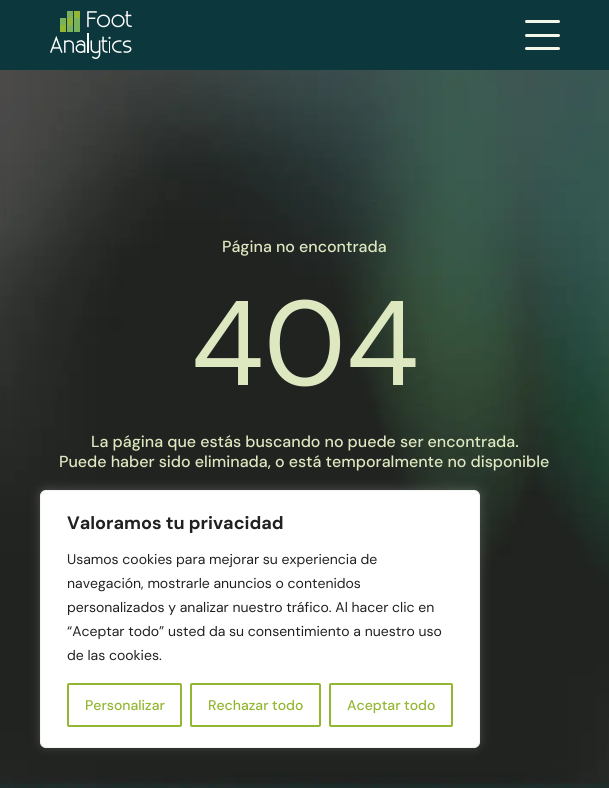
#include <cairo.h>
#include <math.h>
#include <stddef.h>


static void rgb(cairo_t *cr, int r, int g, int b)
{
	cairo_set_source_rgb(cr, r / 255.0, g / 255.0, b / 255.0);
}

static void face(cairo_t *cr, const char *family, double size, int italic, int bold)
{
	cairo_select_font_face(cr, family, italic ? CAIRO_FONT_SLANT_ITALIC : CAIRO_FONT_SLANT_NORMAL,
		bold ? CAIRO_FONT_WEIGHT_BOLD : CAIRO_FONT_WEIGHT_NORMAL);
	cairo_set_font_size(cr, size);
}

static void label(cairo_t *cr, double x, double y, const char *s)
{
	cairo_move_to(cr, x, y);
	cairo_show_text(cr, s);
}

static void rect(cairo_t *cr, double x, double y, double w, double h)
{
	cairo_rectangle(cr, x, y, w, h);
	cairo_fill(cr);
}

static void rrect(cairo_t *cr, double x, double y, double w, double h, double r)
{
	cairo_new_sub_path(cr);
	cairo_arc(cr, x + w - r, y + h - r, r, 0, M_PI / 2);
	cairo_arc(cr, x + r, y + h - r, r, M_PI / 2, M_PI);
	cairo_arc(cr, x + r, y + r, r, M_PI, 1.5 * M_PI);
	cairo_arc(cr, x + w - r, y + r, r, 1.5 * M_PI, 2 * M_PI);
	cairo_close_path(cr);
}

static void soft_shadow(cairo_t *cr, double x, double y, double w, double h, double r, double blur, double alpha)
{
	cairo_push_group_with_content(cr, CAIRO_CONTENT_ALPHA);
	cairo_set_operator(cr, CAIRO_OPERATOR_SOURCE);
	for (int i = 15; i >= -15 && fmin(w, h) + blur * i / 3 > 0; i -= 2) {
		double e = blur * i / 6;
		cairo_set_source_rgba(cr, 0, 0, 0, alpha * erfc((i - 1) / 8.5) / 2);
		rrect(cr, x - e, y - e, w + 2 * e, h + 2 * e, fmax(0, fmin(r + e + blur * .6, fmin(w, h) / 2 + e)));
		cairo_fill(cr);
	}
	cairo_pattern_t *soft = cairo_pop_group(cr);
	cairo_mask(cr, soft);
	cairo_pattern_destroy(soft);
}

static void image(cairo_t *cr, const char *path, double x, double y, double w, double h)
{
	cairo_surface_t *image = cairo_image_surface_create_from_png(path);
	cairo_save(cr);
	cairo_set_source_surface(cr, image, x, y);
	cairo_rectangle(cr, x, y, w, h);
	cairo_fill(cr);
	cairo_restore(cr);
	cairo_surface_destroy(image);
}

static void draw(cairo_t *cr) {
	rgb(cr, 255, 255, 255);
	cairo_paint(cr);
	rgb(cr, 12, 56, 61);
	rect(cr, 0, 0, 609, 70);
	image(cr, "image0.png", 50, 11, 82, 48);
	rgb(cr, 244, 248, 235);
	rrect(cr, 525, 20, 35, 3, 1.5);
	cairo_fill(cr);
	rrect(cr, 525, 34, 35, 3, 1.5);
	cairo_fill(cr);
	rrect(cr, 525, 47, 35, 3, 1.5);
	cairo_fill(cr);
	image(cr, "image1.png", 0, 70, 609, 718);
	face(cr, "DM Sans Medium", 16, 0, 0);
	rgb(cr, 222, 232, 192);
	label(cr, 222, 252, "Página no encontrada");
	face(cr, "DM Sans", 120, 0, 0);
	label(cr, 191, 385, "404");
	face(cr, "DM Sans Medium", 16, 0, 0);
	label(cr, 91, 447, "La página que estás buscando no puede ser encontrada.");
	label(cr, 59, 467, "Puede haber sido eliminada, o está temporalmente no disponible");
	rgb(cr, 172, 171, 171);
	soft_shadow(cr, 40, 489, 440, 258, 6, 5, 0.3);
	rgb(cr, 255, 255, 255);
	rrect(cr, 40.5, 490.5, 439, 257, 5.5);
	cairo_fill_preserve(cr);
	rgb(cr, 244, 244, 244);
	cairo_set_line_width(cr, 1);
	cairo_stroke(cr);
	face(cr, "DM Sans", 18, 0, 1);
	rgb(cr, 33, 33, 33);
	label(cr, 67, 529, "Valoramos tu privacidad");
	face(cr, "DM Sans", 14, 0, 0);
	label(cr, 67, 564, "Usamos cookies para mejorar su experiencia de");
	label(cr, 67, 588, "navegación, mostrarle anuncios o contenidos");
	label(cr, 67, 612, "personalizados y analizar nuestro tráfico. Al hacer clic en");
	label(cr, 67, 636, "“Aceptar todo” usted da su consentimiento a nuestro uso");
	label(cr, 67, 660, "de las cookies.");
	rrect(cr, 68, 684, 113, 42, 1);
	rgb(cr, 147, 182, 51);
	cairo_set_line_width(cr, 2);
	cairo_stroke(cr);
	face(cr, "DM Sans Medium", 14, 0, 0);
	label(cr, 85, 710, "Personalizar");
	rrect(cr, 191, 684, 129, 42, 1);
	cairo_stroke(cr);
	label(cr, 208, 710, "Rechazar todo");
	rrect(cr, 330, 684, 122, 42, 1);
	cairo_stroke(cr);
	label(cr, 347, 710, "Aceptar todo");
}

int main(void) {
	cairo_surface_t *surface = cairo_image_surface_create(CAIRO_FORMAT_RGB24, 609, 788);
	cairo_t *cr = cairo_create(surface);
	cairo_font_options_t *options = cairo_font_options_create();
	cairo_font_options_set_hint_metrics(options, CAIRO_HINT_METRICS_OFF);
	cairo_font_options_set_hint_style(options, CAIRO_HINT_STYLE_NONE);
	cairo_set_font_options(cr, options);
	cairo_set_miter_limit(cr, 4);
	draw(cr);
	cairo_surface_write_to_png(surface, "render.png");
	cairo_font_options_destroy(options);
	cairo_destroy(cr);
	cairo_surface_destroy(surface);
	return 0;
}
